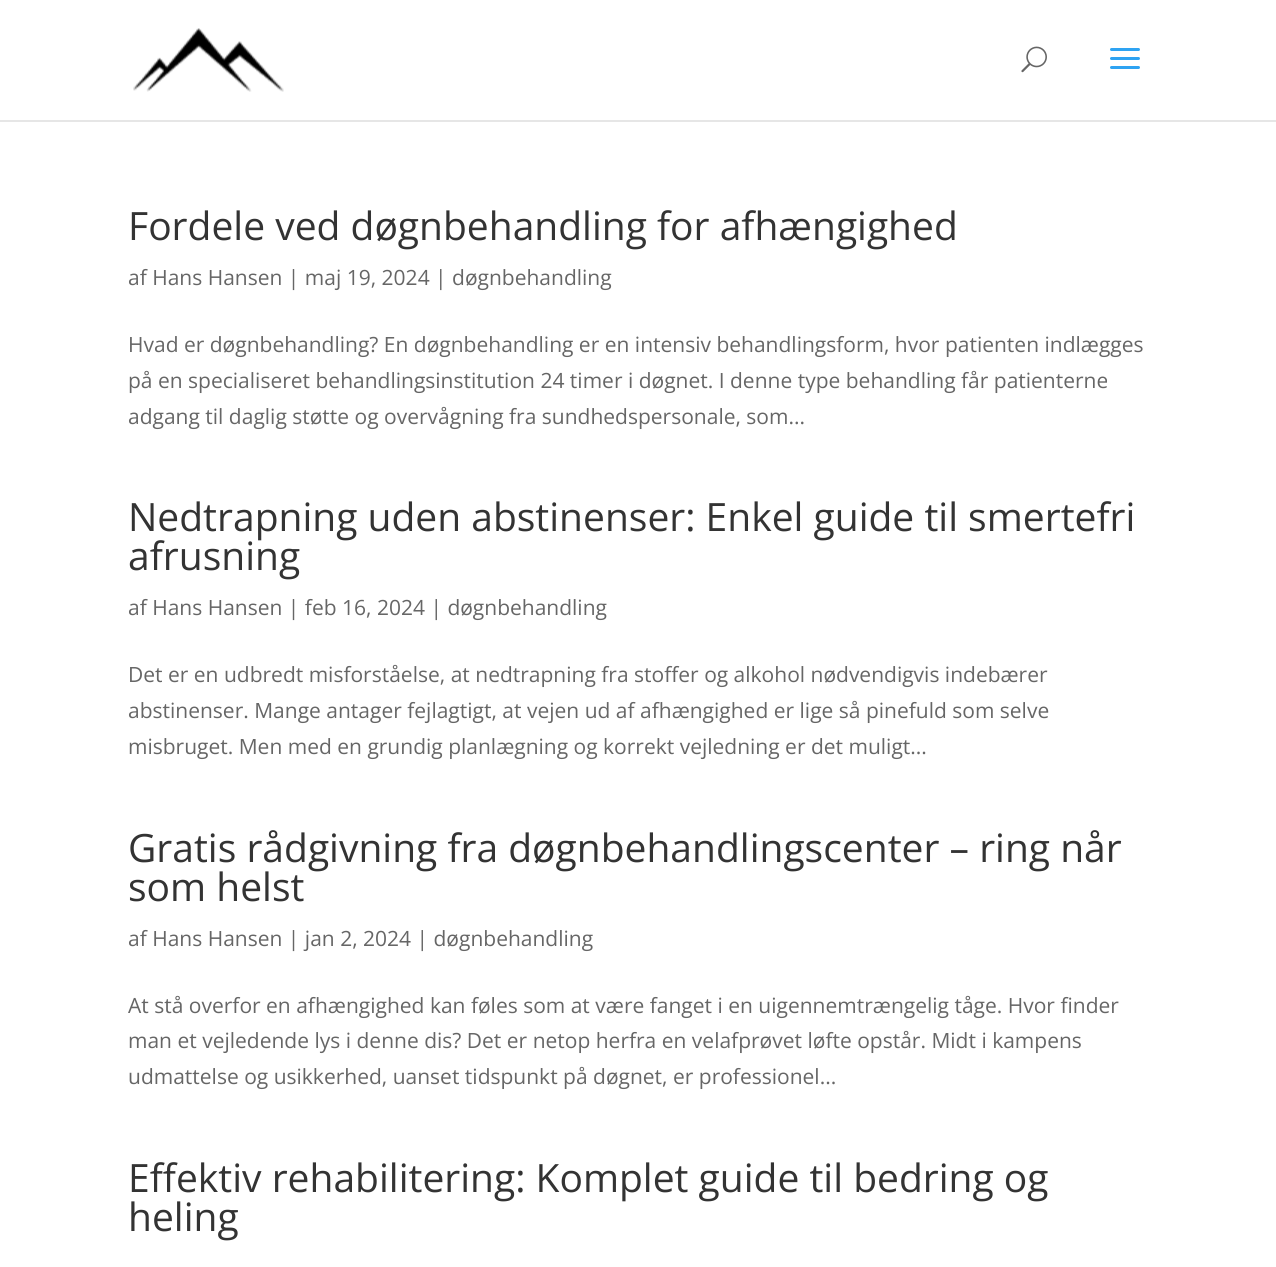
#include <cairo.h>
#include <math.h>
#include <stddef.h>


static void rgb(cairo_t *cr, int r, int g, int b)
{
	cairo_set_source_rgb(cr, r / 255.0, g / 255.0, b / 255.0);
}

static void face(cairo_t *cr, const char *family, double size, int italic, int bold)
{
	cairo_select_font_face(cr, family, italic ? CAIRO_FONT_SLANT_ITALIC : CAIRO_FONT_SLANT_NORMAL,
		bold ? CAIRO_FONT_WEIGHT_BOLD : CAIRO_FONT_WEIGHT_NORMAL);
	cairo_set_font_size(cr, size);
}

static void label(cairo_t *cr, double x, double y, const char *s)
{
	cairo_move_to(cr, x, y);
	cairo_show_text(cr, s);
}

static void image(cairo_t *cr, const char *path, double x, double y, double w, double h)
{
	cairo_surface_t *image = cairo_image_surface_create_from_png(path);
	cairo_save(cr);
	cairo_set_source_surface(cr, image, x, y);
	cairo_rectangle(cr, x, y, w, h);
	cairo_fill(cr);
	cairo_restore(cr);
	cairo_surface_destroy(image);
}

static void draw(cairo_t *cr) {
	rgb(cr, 255, 255, 255);
	cairo_paint(cr);
	rgb(cr, 230, 230, 230);
	cairo_new_path(cr);
	cairo_move_to(cr, 0, 120);
	cairo_line_to(cr, 0, 122);
	cairo_line_to(cr, 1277, 122);
	cairo_line_to(cr, 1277, 2);
	cairo_line_to(cr, 1276, 2);
	cairo_line_to(cr, 1276, 120);
	cairo_close_path(cr);
	cairo_fill(cr);
	image(cr, "image0.png", 133, 28, 151, 64);
	image(cr, "image1.png", 1021, 46, 26, 27);
	image(cr, "image2.png", 1110, 48, 30, 21);
	face(cr, "Open Sans", 39, 0, 0);
	rgb(cr, 51, 51, 51);
	label(cr, 128, 240, "Fordele ved døgnbehandling for afhængighed");
	face(cr, "Open Sans", 21, 0, 0);
	rgb(cr, 102, 102, 102);
	label(cr, 128, 285, "af Hans Hansen | maj 19, 2024 | døgnbehandling");
	label(cr, 128, 352, "Hvad er døgnbehandling? En døgnbehandling er en intensiv behandlingsform, hvor patienten indlægges");
	label(cr, 128, 388, "på en specialiseret behandlingsinstitution 24 timer i døgnet. I denne type behandling får patienterne");
	label(cr, 128, 424, "adgang til daglig støtte og overvågning fra sundhedspersonale, som...");
	face(cr, "Open Sans", 39, 0, 0);
	rgb(cr, 51, 51, 51);
	label(cr, 128, 531, "Nedtrapning uden abstinenser: Enkel guide til smertefri");
	label(cr, 128, 570, "afrusning");
	face(cr, "Open Sans", 21, 0, 0);
	rgb(cr, 102, 102, 102);
	label(cr, 128, 615, "af Hans Hansen | feb 16, 2024 | døgnbehandling");
	label(cr, 128, 682, "Det er en udbredt misforståelse, at nedtrapning fra stoffer og alkohol nødvendigvis indebærer");
	label(cr, 128, 718, "abstinenser. Mange antager fejlagtigt, at vejen ud af afhængighed er lige så pinefuld som selve");
	label(cr, 128, 754, "misbruget. Men med en grundig planlægning og korrekt vejledning er det muligt...");
	face(cr, "Open Sans", 39, 0, 0);
	rgb(cr, 51, 51, 51);
	label(cr, 128, 862, "Gratis rådgivning fra døgnbehandlingscenter – ring når");
	label(cr, 128, 901, "som helst");
	face(cr, "Open Sans", 21, 0, 0);
	rgb(cr, 102, 102, 102);
	label(cr, 128, 946, "af Hans Hansen | jan 2, 2024 | døgnbehandling");
	label(cr, 128, 1013, "At stå overfor en afhængighed kan føles som at være fanget i en uigennemtrængelig tåge. Hvor finder");
	label(cr, 128, 1048, "man et vejledende lys i denne dis? Det er netop herfra en velafprøvet løfte opstår. Midt i kampens");
	label(cr, 128, 1084, "udmattelse og usikkerhed, uanset tidspunkt på døgnet, er professionel...");
	face(cr, "Open Sans", 39, 0, 0);
	rgb(cr, 51, 51, 51);
	label(cr, 128, 1192, "Effektiv rehabilitering: Komplet guide til bedring og");
	label(cr, 128, 1231, "heling");
}

int main(void) {
	cairo_surface_t *surface = cairo_image_surface_create(CAIRO_FORMAT_RGB24, 1276, 1267);
	cairo_t *cr = cairo_create(surface);
	cairo_font_options_t *options = cairo_font_options_create();
	cairo_font_options_set_hint_metrics(options, CAIRO_HINT_METRICS_OFF);
	cairo_font_options_set_hint_style(options, CAIRO_HINT_STYLE_NONE);
	cairo_set_font_options(cr, options);
	cairo_set_miter_limit(cr, 4);
	draw(cr);
	cairo_surface_write_to_png(surface, "render.png");
	cairo_font_options_destroy(options);
	cairo_destroy(cr);
	cairo_surface_destroy(surface);
	return 0;
}
